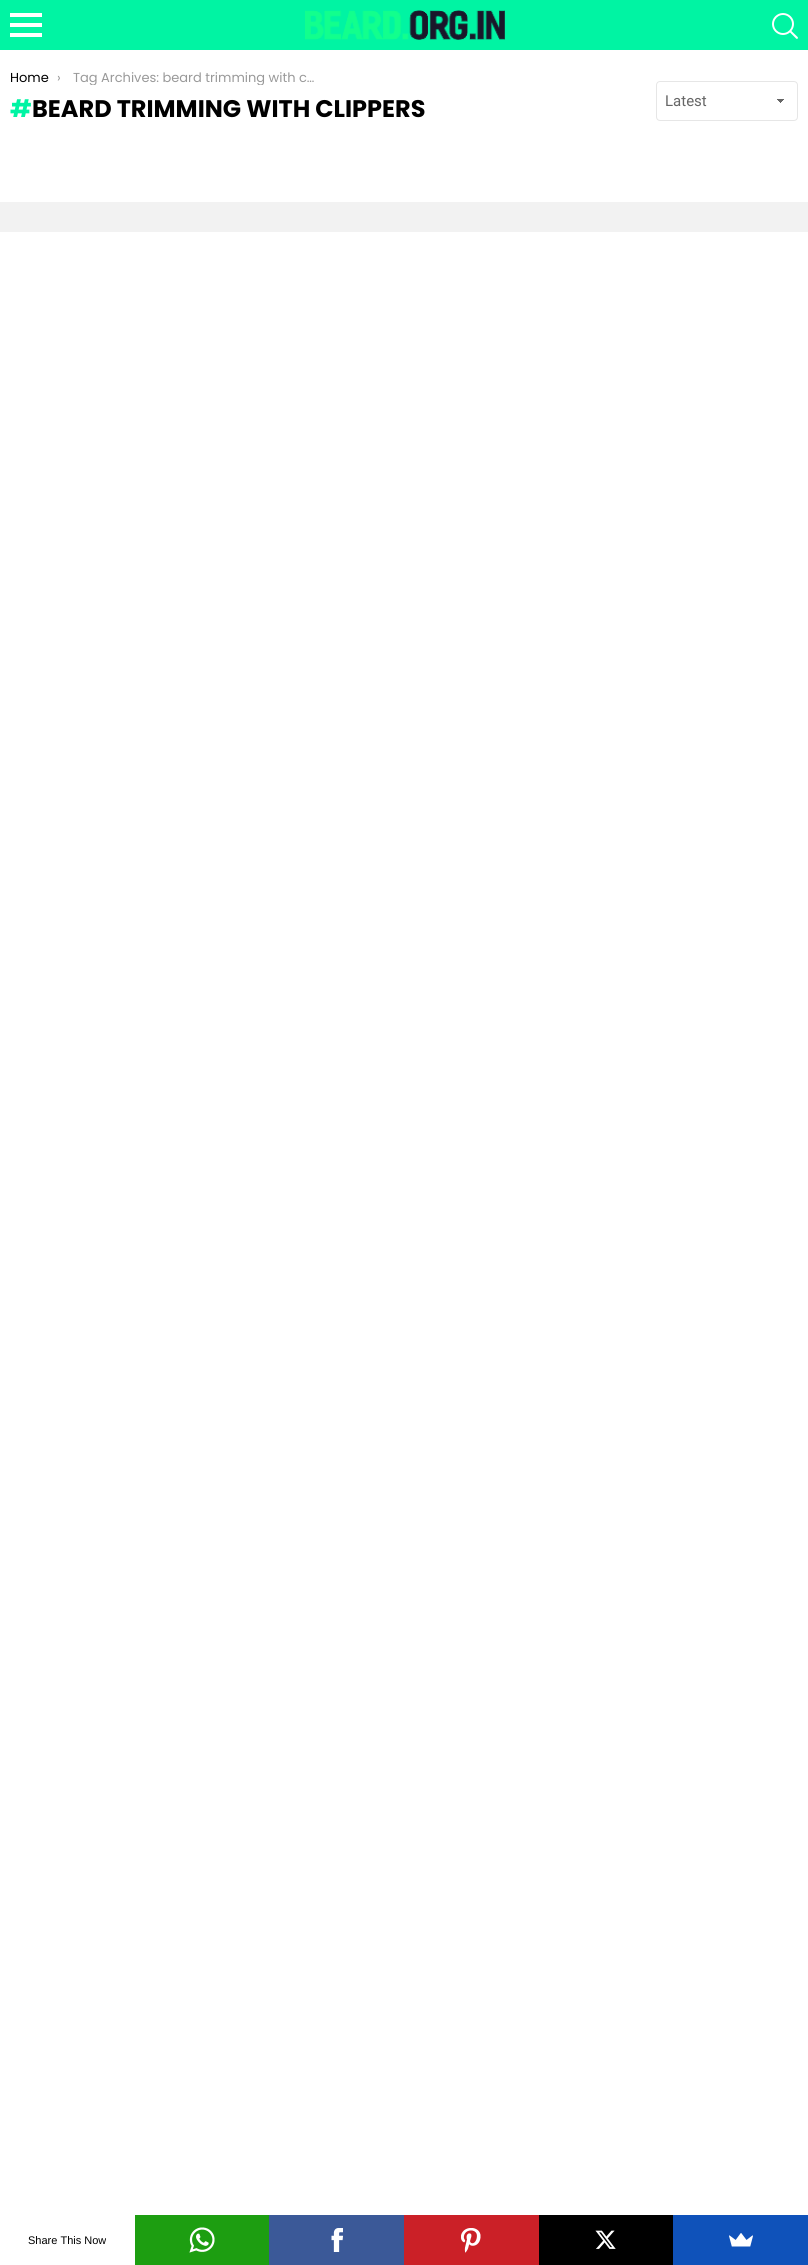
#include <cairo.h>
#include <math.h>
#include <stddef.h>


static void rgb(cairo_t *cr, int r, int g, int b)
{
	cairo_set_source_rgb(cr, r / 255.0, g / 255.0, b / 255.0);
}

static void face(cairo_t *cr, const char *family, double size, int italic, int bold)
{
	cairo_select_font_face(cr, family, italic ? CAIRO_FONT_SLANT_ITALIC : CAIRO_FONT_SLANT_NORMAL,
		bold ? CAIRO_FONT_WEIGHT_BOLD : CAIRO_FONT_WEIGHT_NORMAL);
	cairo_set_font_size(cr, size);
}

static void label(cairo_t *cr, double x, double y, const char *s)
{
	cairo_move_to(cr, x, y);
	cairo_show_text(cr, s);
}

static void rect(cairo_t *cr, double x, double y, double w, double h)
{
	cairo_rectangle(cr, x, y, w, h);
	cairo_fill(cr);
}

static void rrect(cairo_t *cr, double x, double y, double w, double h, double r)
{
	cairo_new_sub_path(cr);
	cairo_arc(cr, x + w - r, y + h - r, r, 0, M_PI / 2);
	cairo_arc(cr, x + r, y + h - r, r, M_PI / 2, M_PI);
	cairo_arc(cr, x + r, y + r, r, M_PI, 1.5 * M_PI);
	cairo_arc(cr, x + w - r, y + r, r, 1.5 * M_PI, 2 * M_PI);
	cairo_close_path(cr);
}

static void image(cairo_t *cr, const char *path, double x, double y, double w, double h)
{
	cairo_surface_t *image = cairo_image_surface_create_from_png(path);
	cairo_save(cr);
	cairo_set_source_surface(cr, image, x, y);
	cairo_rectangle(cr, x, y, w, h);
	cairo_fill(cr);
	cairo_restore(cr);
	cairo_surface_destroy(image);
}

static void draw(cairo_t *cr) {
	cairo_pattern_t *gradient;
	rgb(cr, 255, 255, 255);
	cairo_paint(cr);
	rgb(cr, 0, 244, 163);
	rect(cr, 0, 0, 808, 50);
	image(cr, "image0.png", 10, 13, 32, 24);
	image(cr, "image1.png", 305, 10, 200, 30);
	image(cr, "image2.png", 772, 13, 26, 26);
	face(cr, "Poppins", 13, 0, 0);
	rgb(cr, 0, 0, 0);
	label(cr, 10, 82, "Home");
	rgb(cr, 153, 153, 153);
	label(cr, 57, 82, "›");
	cairo_save(cr);
	cairo_rectangle(cr, 57, 70, 260, 15);
	cairo_clip(cr);
	label(cr, 73, 82, "Tag Archives: beard trimming with c…");
	cairo_restore(cr);
	face(cr, "Poppins", 24, 0, 1);
	rgb(cr, 0, 244, 163);
	label(cr, 10, 117, "#");
	rgb(cr, 0, 0, 0);
	label(cr, 32, 117, "BEARD TRIMMING WITH CLIPPERS");
	gradient = cairo_pattern_create_linear(781, 99, 785, 103);
	cairo_pattern_add_color_stop_rgba(gradient, 0.5, 0.4, 0.4, 0.4, 1);
	cairo_pattern_add_color_stop_rgba(gradient, 0.5, 1, 1, 1, 1);
	cairo_set_source(cr, gradient);
	cairo_pattern_destroy(gradient);
	rect(cr, 781, 99, 4, 3);
	gradient = cairo_pattern_create_linear(777, 103, 781, 99);
	cairo_pattern_add_color_stop_rgba(gradient, 0.5, 1, 1, 1, 1);
	cairo_pattern_add_color_stop_rgba(gradient, 0.5, 0.4, 0.4, 0.4, 1);
	cairo_set_source(cr, gradient);
	cairo_pattern_destroy(gradient);
	rect(cr, 777, 99, 4, 4);
	rrect(cr, 656.5, 81.5, 141, 39, 3.5);
	rgb(cr, 230, 230, 230);
	cairo_set_line_width(cr, 1);
	cairo_stroke(cr);
	face(cr, "Roboto", 15, 0, 0);
	rgb(cr, 102, 102, 102);
	label(cr, 665, 106, "Latest");
	rgb(cr, 242, 242, 242);
	rect(cr, 0, 202, 808, 30);
	face(cr, "Liberation Sans", 11, 0, 0);
	rgb(cr, 0, 0, 0);
	label(cr, 28, 2244, "Share This Now");
	rgb(cr, 29, 158, 17);
	rect(cr, 135, 2215, 134, 50);
	image(cr, "image3.png", 189, 2227, 26, 26);
	rgb(cr, 59, 89, 152);
	rect(cr, 269, 2215, 135, 50);
	image(cr, "image4.png", 331, 2228, 12, 24);
	rgb(cr, 203, 32, 39);
	rect(cr, 404, 2215, 135, 50);
	image(cr, "image5.png", 461, 2228, 20, 25);
	rgb(cr, 0, 0, 0);
	rect(cr, 539, 2215, 134, 50);
	image(cr, "image6.png", 595, 2230, 21, 19);
	rgb(cr, 15, 82, 186);
	rect(cr, 673, 2215, 135, 50);
	image(cr, "image7.png", 729, 2233, 24, 14);
}

int main(void) {
	cairo_surface_t *surface = cairo_image_surface_create(CAIRO_FORMAT_RGB24, 808, 2265);
	cairo_t *cr = cairo_create(surface);
	cairo_font_options_t *options = cairo_font_options_create();
	cairo_font_options_set_hint_metrics(options, CAIRO_HINT_METRICS_OFF);
	cairo_font_options_set_hint_style(options, CAIRO_HINT_STYLE_NONE);
	cairo_set_font_options(cr, options);
	cairo_set_miter_limit(cr, 4);
	draw(cr);
	cairo_surface_write_to_png(surface, "render.png");
	cairo_font_options_destroy(options);
	cairo_destroy(cr);
	cairo_surface_destroy(surface);
	return 0;
}
